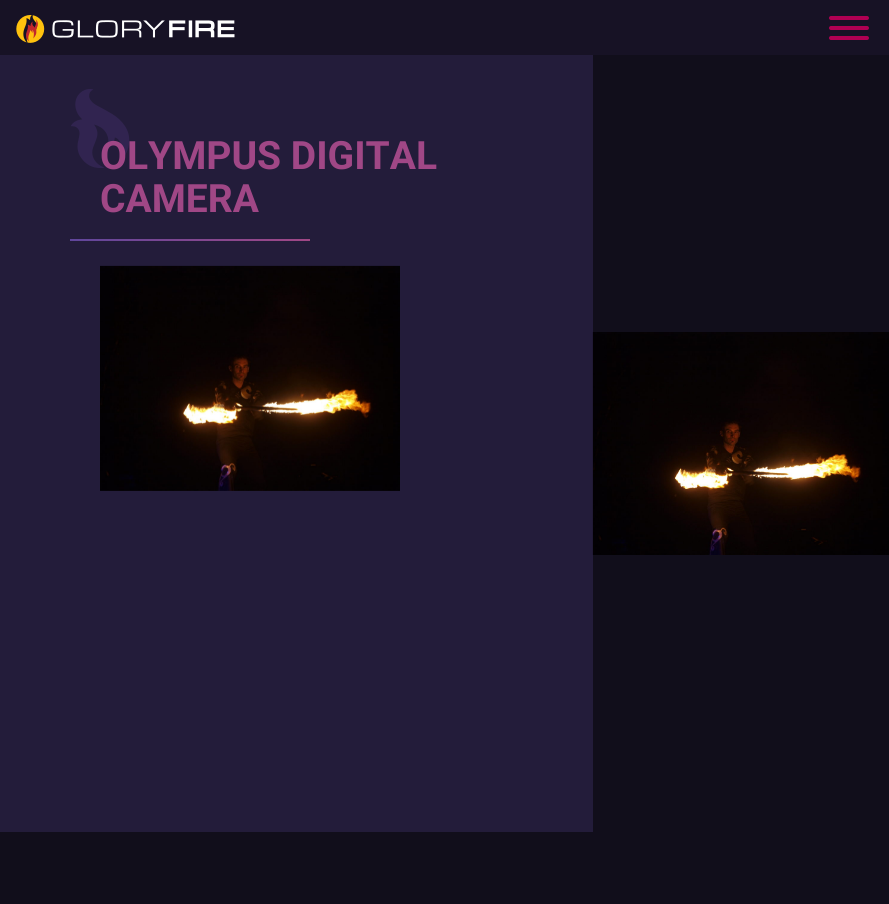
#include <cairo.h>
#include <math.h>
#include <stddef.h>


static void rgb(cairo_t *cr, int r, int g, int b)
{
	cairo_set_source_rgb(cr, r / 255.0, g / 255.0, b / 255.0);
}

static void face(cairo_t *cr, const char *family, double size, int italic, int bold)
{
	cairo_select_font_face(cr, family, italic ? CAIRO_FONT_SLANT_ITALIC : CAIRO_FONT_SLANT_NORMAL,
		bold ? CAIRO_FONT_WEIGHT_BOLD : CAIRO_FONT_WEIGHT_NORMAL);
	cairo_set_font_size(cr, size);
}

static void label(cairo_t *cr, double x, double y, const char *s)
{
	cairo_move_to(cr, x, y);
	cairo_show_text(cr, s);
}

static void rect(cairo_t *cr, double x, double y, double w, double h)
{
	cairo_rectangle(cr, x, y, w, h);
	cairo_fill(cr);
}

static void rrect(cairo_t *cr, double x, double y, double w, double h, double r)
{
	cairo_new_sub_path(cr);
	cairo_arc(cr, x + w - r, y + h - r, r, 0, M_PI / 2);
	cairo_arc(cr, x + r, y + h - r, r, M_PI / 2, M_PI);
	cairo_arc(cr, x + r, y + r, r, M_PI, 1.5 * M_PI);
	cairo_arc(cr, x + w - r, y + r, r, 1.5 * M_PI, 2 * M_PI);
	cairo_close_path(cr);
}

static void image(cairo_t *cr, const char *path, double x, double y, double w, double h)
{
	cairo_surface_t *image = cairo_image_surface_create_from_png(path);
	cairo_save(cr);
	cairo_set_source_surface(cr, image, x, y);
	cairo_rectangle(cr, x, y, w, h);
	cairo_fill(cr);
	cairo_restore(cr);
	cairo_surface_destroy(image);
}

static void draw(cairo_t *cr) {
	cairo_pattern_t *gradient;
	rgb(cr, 17, 14, 27);
	cairo_paint(cr);
	rgb(cr, 23, 18, 37);
	rect(cr, 0, 0, 889, 55);
	image(cr, "image0.png", 16, 15, 219, 28);
	rgb(cr, 176, 0, 83);
	rrect(cr, 829, 26, 40, 4, 2);
	cairo_fill(cr);
	rrect(cr, 829, 16, 40, 4, 2);
	cairo_fill(cr);
	rrect(cr, 829, 36, 40, 4, 2);
	cairo_fill(cr);
	rgb(cr, 35, 28, 58);
	rect(cr, 0, 55, 593, 777);
	image(cr, "image1.png", 71, 89, 59, 79);
	face(cr, "Roboto", 39, 0, 1);
	rgb(cr, 160, 71, 134);
	label(cr, 100, 169, "OLYMPUS DIGITAL");
	label(cr, 100, 212, "CAMERA");
	gradient = cairo_pattern_create_linear(70, 240, 310, 240);
	cairo_pattern_add_color_stop_rgba(gradient, 0, 0.376, 0.275, 0.608, 1);
	cairo_pattern_add_color_stop_rgba(gradient, 1, 0.627, 0.278, 0.525, 1);
	cairo_set_source(cr, gradient);
	cairo_pattern_destroy(gradient);
	rect(cr, 70, 239, 240, 2);
	image(cr, "image2.png", 100, 265, 300, 226);
	image(cr, "image3.png", 592, 332, 297, 223);
}

int main(void) {
	cairo_surface_t *surface = cairo_image_surface_create(CAIRO_FORMAT_RGB24, 889, 904);
	cairo_t *cr = cairo_create(surface);
	cairo_font_options_t *options = cairo_font_options_create();
	cairo_font_options_set_hint_metrics(options, CAIRO_HINT_METRICS_OFF);
	cairo_font_options_set_hint_style(options, CAIRO_HINT_STYLE_NONE);
	cairo_set_font_options(cr, options);
	cairo_set_miter_limit(cr, 4);
	draw(cr);
	cairo_surface_write_to_png(surface, "render.png");
	cairo_font_options_destroy(options);
	cairo_destroy(cr);
	cairo_surface_destroy(surface);
	return 0;
}
